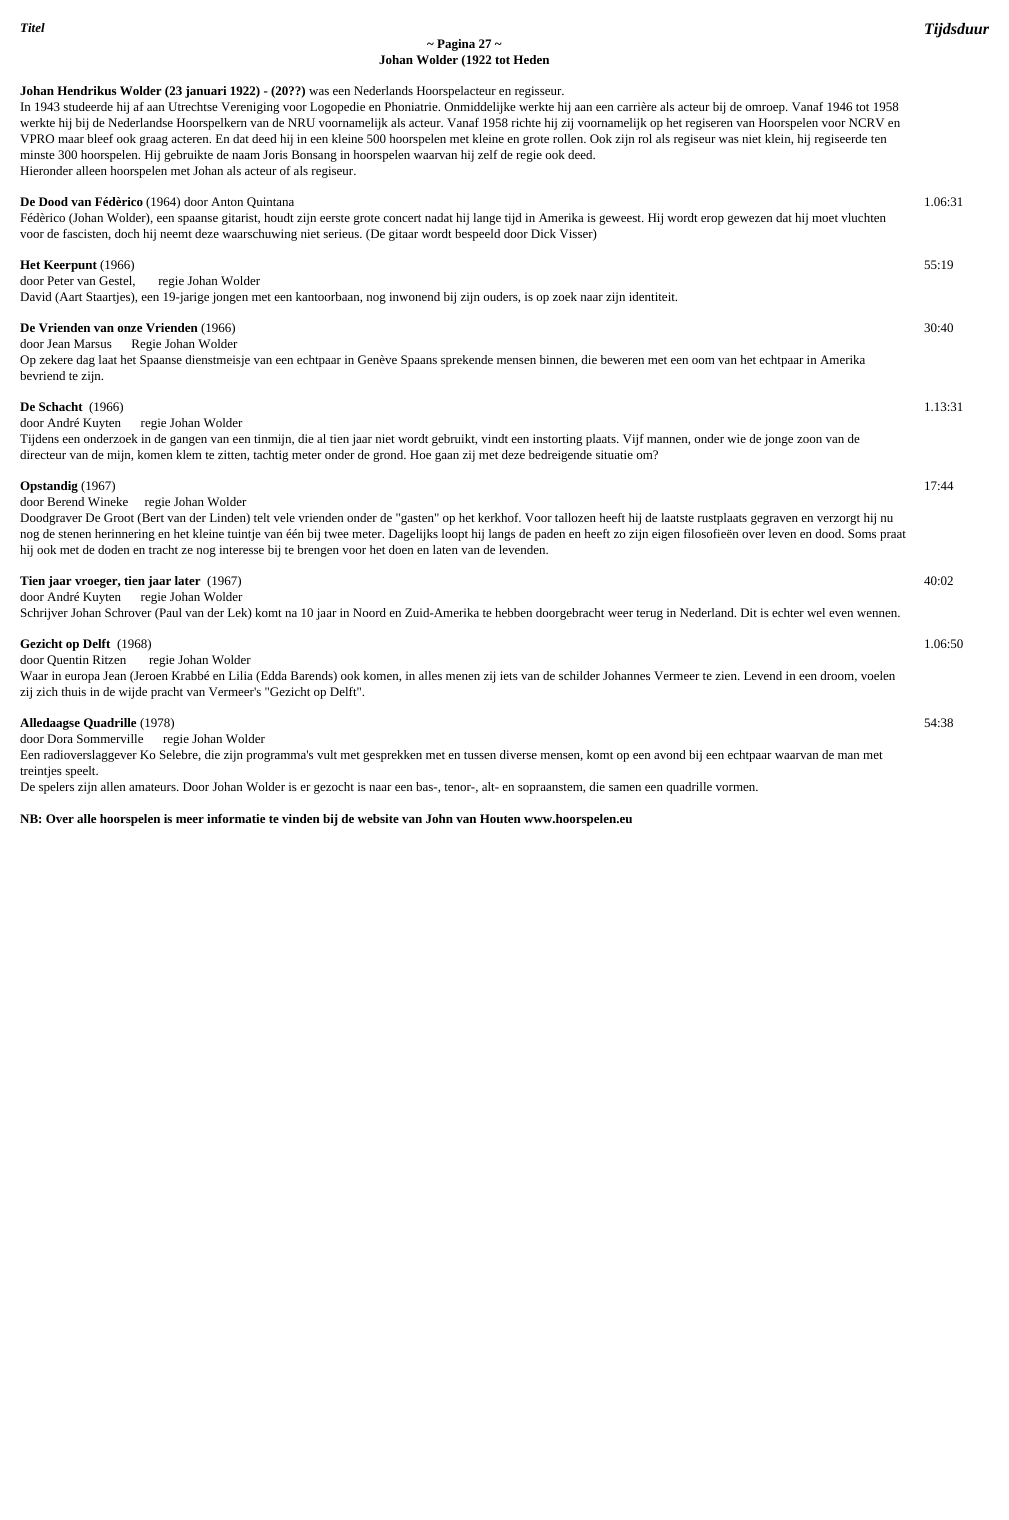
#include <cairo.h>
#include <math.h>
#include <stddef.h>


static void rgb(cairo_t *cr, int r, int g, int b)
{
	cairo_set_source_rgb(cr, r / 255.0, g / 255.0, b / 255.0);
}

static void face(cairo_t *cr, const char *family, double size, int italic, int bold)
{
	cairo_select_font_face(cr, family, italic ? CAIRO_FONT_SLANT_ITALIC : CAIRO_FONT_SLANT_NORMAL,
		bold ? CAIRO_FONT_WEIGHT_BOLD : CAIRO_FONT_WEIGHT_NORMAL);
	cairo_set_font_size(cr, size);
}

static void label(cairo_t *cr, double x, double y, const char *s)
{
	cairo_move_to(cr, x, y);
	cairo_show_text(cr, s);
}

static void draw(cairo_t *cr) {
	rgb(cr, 255, 255, 255);
	cairo_paint(cr);
	face(cr, "Liberation Serif", 13, 1, 1);
	rgb(cr, 0, 0, 0);
	label(cr, 20, 32, "Titel");
	face(cr, "Liberation Serif", 13, 0, 1);
	label(cr, 427, 48, "~ Pagina 27 ~");
	label(cr, 379, 64, "Johan Wolder (1922 tot Heden");
	face(cr, "Liberation Serif", 16, 1, 1);
	label(cr, 924, 34, "Tijdsduur");
	face(cr, "Liberation Serif", 13, 0, 1);
	label(cr, 20, 95, "Johan Hendrikus Wolder (23 januari 1922) - (20?\077)");
	face(cr, "Liberation Serif", 13, 0, 0);
	label(cr, 309, 95, "was een Nederlands Hoorspelacteur en regisseur.");
	label(cr, 20, 111, "In 1943 studeerde hij af aan Utrechtse Vereniging voor Logopedie en Phoniatrie. Onmiddelijke werkte hij aan een carrière als acteur bij de omroep. Vanaf 1946 tot 1958");
	label(cr, 20, 127, "werkte hij bij de Nederlandse Hoorspelkern van de NRU voornamelijk als acteur. Vanaf 1958 richte hij zij voornamelijk op het regiseren van Hoorspelen voor NCRV en");
	label(cr, 20, 143, "VPRO maar bleef ook graag acteren. En dat deed hij in een kleine 500 hoorspelen met kleine en grote rollen. Ook zijn rol als regiseur was niet klein, hij regiseerde ten");
	label(cr, 20, 159, "minste 300 hoorspelen. Hij gebruikte de naam Joris Bonsang in hoorspelen waarvan hij zelf de regie ook deed.");
	label(cr, 20, 175, "Hieronder alleen hoorspelen met Johan als acteur of als regiseur.");
	face(cr, "Liberation Serif", 13, 0, 1);
	label(cr, 20, 206, "De Dood van Fédèrico");
	face(cr, "Liberation Serif", 13, 0, 0);
	label(cr, 146, 206, "(1964) door Anton Quintana");
	label(cr, 20, 222, "Fédèrico (Johan Wolder), een spaanse gitarist, houdt zijn eerste grote concert nadat hij lange tijd in Amerika is geweest. Hij wordt erop gewezen dat hij moet vluchten");
	label(cr, 20, 238, "voor de fascisten, doch hij neemt deze waarschuwing niet serieus. (De gitaar wordt bespeeld door Dick Visser)");
	label(cr, 924, 206, "1.06:31");
	face(cr, "Liberation Serif", 13, 0, 1);
	label(cr, 20, 269, "Het Keerpunt");
	face(cr, "Liberation Serif", 13, 0, 0);
	label(cr, 100, 269, "(1966)");
	label(cr, 20, 285, "door Peter van Gestel,       regie Johan Wolder");
	label(cr, 20, 301, "David (Aart Staartjes), een 19-jarige jongen met een kantoorbaan, nog inwonend bij zijn ouders, is op zoek naar zijn identiteit.");
	label(cr, 924, 269, "55:19");
	face(cr, "Liberation Serif", 13, 0, 1);
	label(cr, 20, 332, "De Vrienden van onze Vrienden");
	face(cr, "Liberation Serif", 13, 0, 0);
	label(cr, 201, 332, "(1966)");
	label(cr, 20, 348, "door Jean Marsus      Regie Johan Wolder");
	label(cr, 20, 364, "Op zekere dag laat het Spaanse dienstmeisje van een echtpaar in Genève Spaans sprekende mensen binnen, die beweren met een oom van het echtpaar in Amerika");
	label(cr, 20, 380, "bevriend te zijn.");
	label(cr, 924, 332, "30:40");
	face(cr, "Liberation Serif", 13, 0, 1);
	label(cr, 20, 411, "De Schacht");
	face(cr, "Liberation Serif", 13, 0, 0);
	label(cr, 89, 411, "(1966)");
	label(cr, 20, 427, "door André Kuyten      regie Johan Wolder");
	label(cr, 20, 443, "Tijdens een onderzoek in de gangen van een tinmijn, die al tien jaar niet wordt gebruikt, vindt een instorting plaats. Vijf mannen, onder wie de jonge zoon van de");
	label(cr, 20, 459, "directeur van de mijn, komen klem te zitten, tachtig meter onder de grond. Hoe gaan zij met deze bedreigende situatie om?");
	label(cr, 924, 411, "1.13:31");
	face(cr, "Liberation Serif", 13, 0, 1);
	label(cr, 20, 490, "Opstandig");
	face(cr, "Liberation Serif", 13, 0, 0);
	label(cr, 81, 490, "(1967)");
	label(cr, 20, 506, "door Berend Wineke     regie Johan Wolder");
	label(cr, 20, 522, "Doodgraver De Groot (Bert van der Linden) telt vele vrienden onder de \"gasten\" op het kerkhof. Voor tallozen heeft hij de laatste rustplaats gegraven en verzorgt hij nu");
	label(cr, 20, 538, "nog de stenen herinnering en het kleine tuintje van één bij twee meter. Dagelijks loopt hij langs de paden en heeft zo zijn eigen filosofieën over leven en dood. Soms praat");
	label(cr, 20, 554, "hij ook met de doden en tracht ze nog interesse bij te brengen voor het doen en laten van de levenden.");
	label(cr, 924, 490, "17:44");
	face(cr, "Liberation Serif", 13, 0, 1);
	label(cr, 20, 585, "Tien jaar vroeger, tien jaar later");
	face(cr, "Liberation Serif", 13, 0, 0);
	label(cr, 207, 585, "(1967)");
	label(cr, 20, 601, "door André Kuyten      regie Johan Wolder");
	label(cr, 20, 617, "Schrijver Johan Schrover (Paul van der Lek) komt na 10 jaar in Noord en Zuid-Amerika te hebben doorgebracht weer terug in Nederland. Dit is echter wel even wennen.");
	label(cr, 924, 585, "40:02");
	face(cr, "Liberation Serif", 13, 0, 1);
	label(cr, 20, 648, "Gezicht op Delft");
	face(cr, "Liberation Serif", 13, 0, 0);
	label(cr, 117, 648, "(1968)");
	label(cr, 20, 664, "door Quentin Ritzen       regie Johan Wolder");
	label(cr, 20, 680, "Waar in europa Jean (Jeroen Krabbé en Lilia (Edda Barends) ook komen, in alles menen zij iets van de schilder Johannes Vermeer te zien. Levend in een droom, voelen");
	label(cr, 20, 696, "zij zich thuis in de wijde pracht van Vermeer's \"Gezicht op Delft\".");
	label(cr, 924, 648, "1.06:50");
	face(cr, "Liberation Serif", 13, 0, 1);
	label(cr, 20, 727, "Alledaagse Quadrille");
	face(cr, "Liberation Serif", 13, 0, 0);
	label(cr, 140, 727, "(1978)");
	label(cr, 20, 743, "door Dora Sommerville      regie Johan Wolder");
	label(cr, 20, 759, "Een radioverslaggever Ko Selebre, die zijn programma's vult met gesprekken met en tussen diverse mensen, komt op een avond bij een echtpaar waarvan de man met");
	label(cr, 20, 775, "treintjes speelt.");
	label(cr, 20, 791, "De spelers zijn allen amateurs. Door Johan Wolder is er gezocht is naar een bas-, tenor-, alt- en sopraanstem, die samen een quadrille vormen.");
	face(cr, "Liberation Serif", 13, 0, 1);
	label(cr, 20, 823, "NB: Over alle hoorspelen is meer informatie te vinden bij de website van John van Houten www.hoorspelen.eu");
	face(cr, "Liberation Serif", 13, 0, 0);
	label(cr, 924, 727, "54:38");
}

int main(void) {
	cairo_surface_t *surface = cairo_image_surface_create(CAIRO_FORMAT_RGB24, 1009, 1520);
	cairo_t *cr = cairo_create(surface);
	cairo_font_options_t *options = cairo_font_options_create();
	cairo_font_options_set_hint_metrics(options, CAIRO_HINT_METRICS_OFF);
	cairo_font_options_set_hint_style(options, CAIRO_HINT_STYLE_NONE);
	cairo_set_font_options(cr, options);
	cairo_set_miter_limit(cr, 4);
	draw(cr);
	cairo_surface_write_to_png(surface, "render.png");
	cairo_font_options_destroy(options);
	cairo_destroy(cr);
	cairo_surface_destroy(surface);
	return 0;
}
